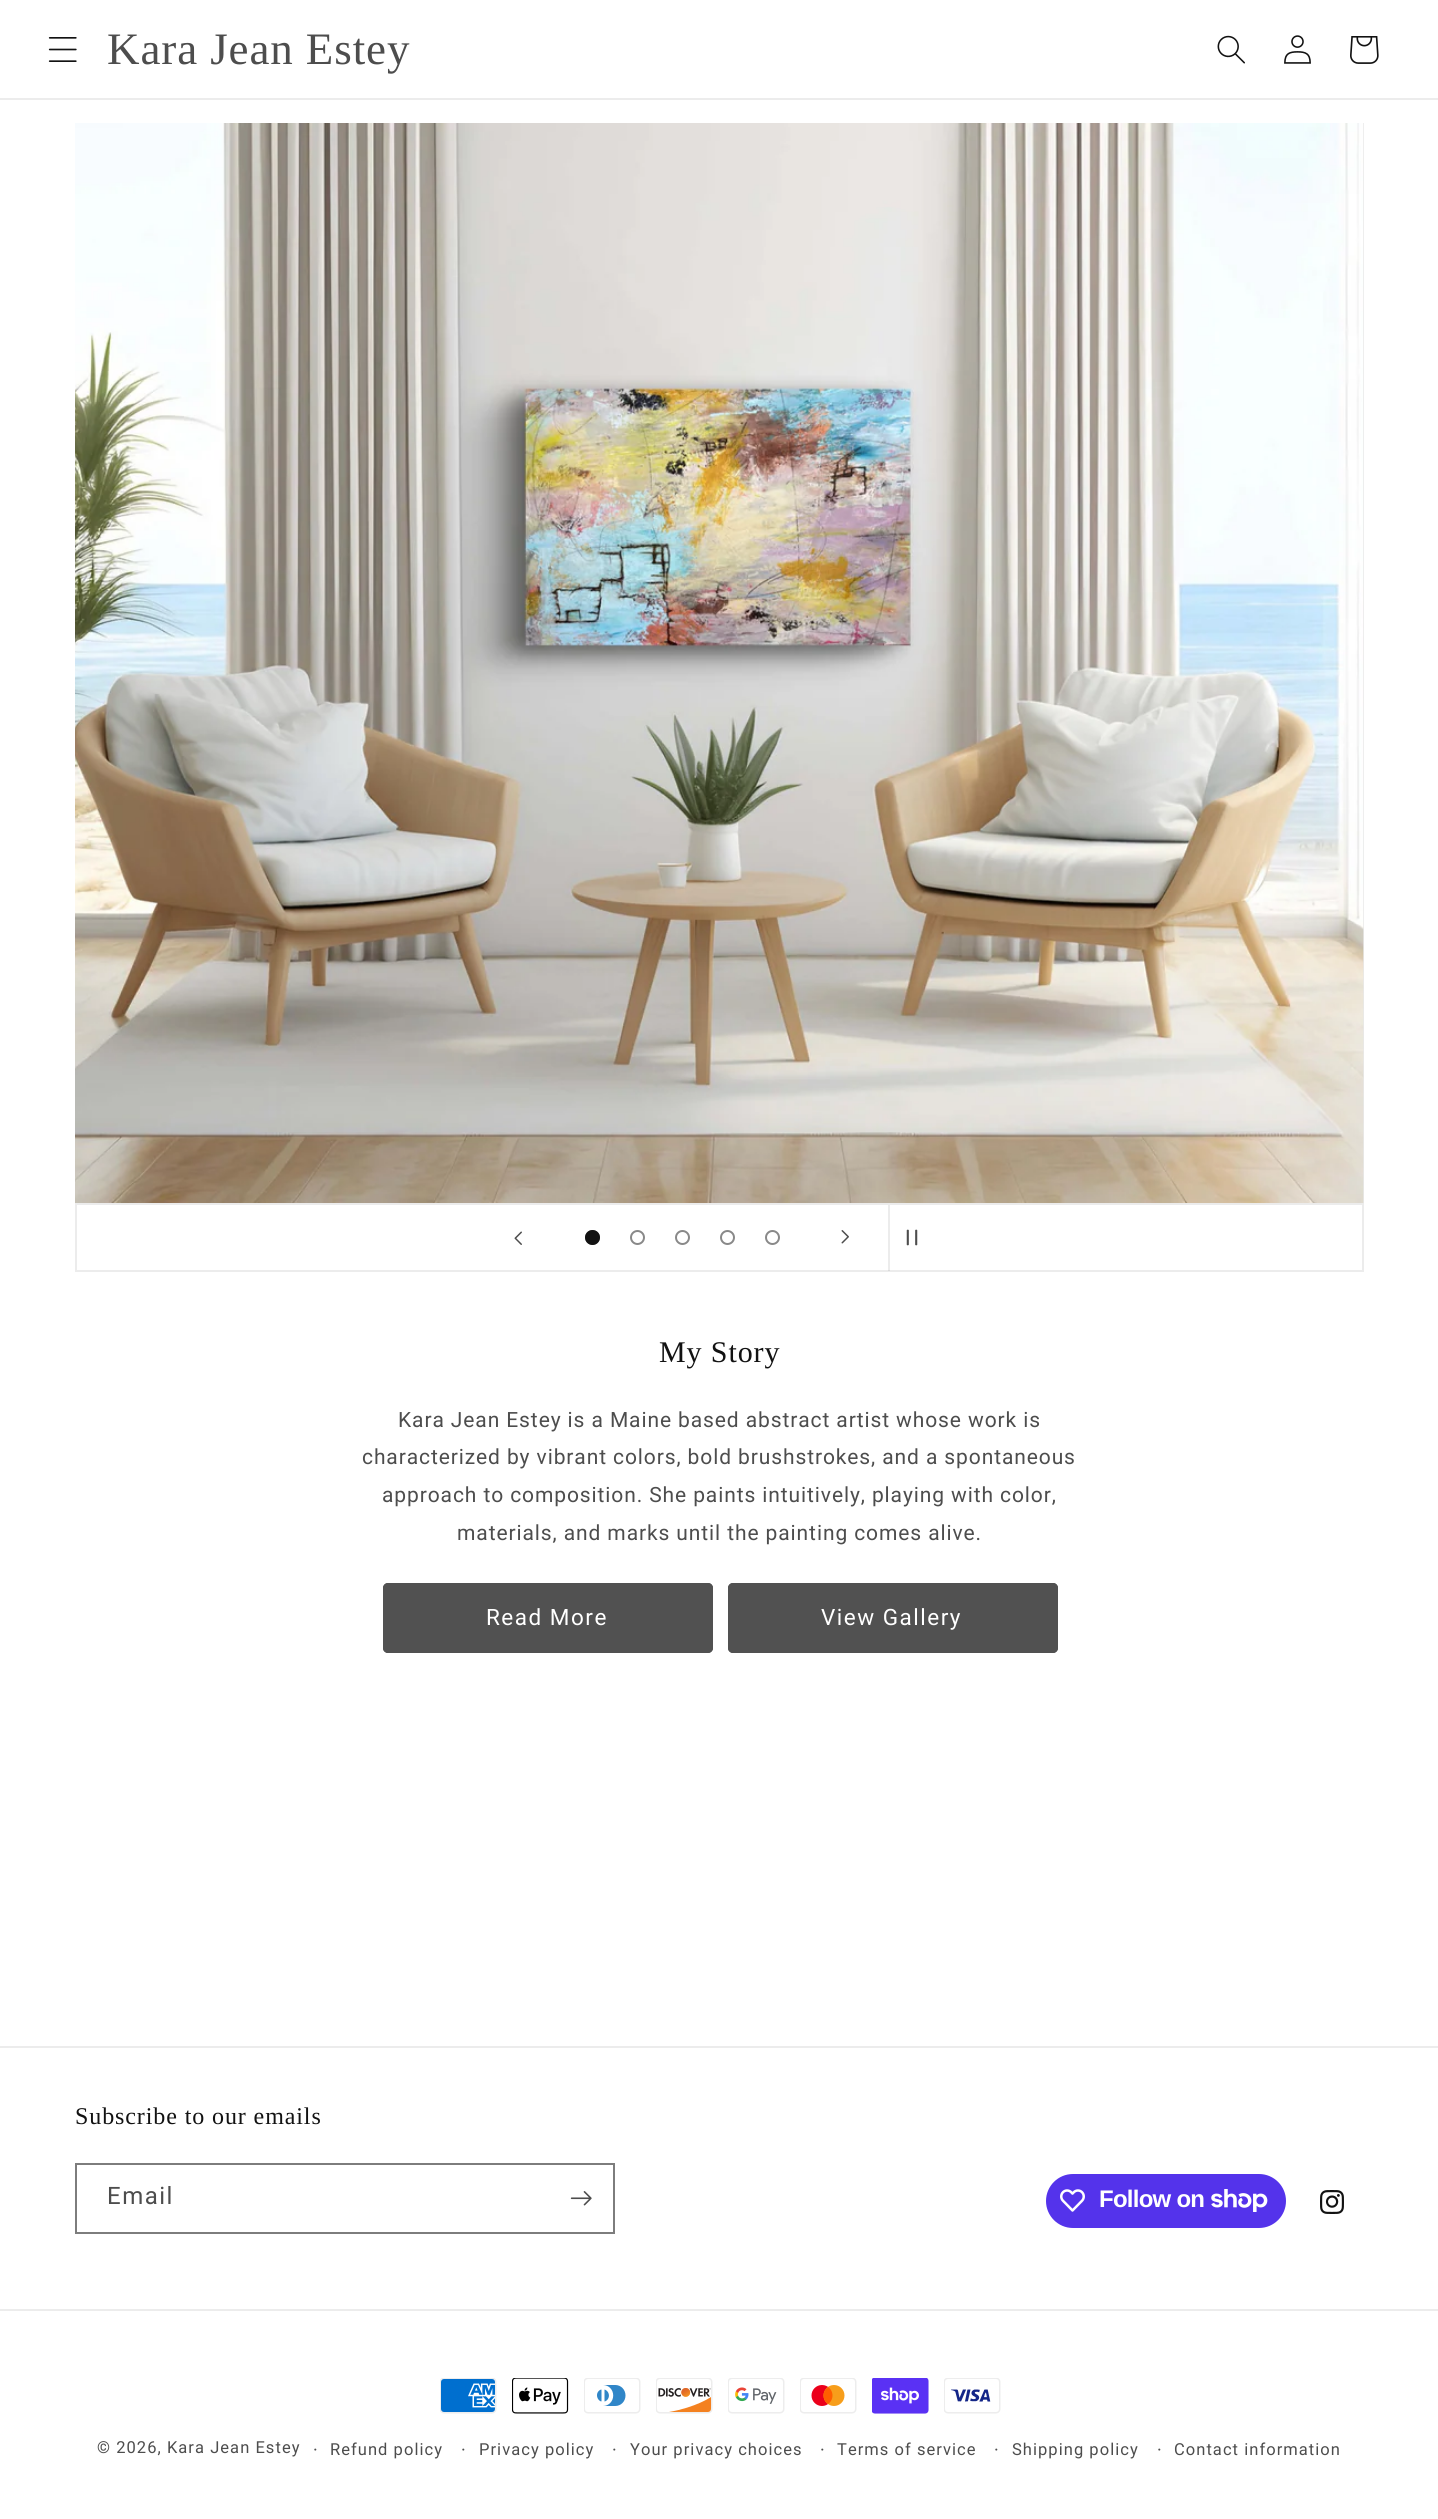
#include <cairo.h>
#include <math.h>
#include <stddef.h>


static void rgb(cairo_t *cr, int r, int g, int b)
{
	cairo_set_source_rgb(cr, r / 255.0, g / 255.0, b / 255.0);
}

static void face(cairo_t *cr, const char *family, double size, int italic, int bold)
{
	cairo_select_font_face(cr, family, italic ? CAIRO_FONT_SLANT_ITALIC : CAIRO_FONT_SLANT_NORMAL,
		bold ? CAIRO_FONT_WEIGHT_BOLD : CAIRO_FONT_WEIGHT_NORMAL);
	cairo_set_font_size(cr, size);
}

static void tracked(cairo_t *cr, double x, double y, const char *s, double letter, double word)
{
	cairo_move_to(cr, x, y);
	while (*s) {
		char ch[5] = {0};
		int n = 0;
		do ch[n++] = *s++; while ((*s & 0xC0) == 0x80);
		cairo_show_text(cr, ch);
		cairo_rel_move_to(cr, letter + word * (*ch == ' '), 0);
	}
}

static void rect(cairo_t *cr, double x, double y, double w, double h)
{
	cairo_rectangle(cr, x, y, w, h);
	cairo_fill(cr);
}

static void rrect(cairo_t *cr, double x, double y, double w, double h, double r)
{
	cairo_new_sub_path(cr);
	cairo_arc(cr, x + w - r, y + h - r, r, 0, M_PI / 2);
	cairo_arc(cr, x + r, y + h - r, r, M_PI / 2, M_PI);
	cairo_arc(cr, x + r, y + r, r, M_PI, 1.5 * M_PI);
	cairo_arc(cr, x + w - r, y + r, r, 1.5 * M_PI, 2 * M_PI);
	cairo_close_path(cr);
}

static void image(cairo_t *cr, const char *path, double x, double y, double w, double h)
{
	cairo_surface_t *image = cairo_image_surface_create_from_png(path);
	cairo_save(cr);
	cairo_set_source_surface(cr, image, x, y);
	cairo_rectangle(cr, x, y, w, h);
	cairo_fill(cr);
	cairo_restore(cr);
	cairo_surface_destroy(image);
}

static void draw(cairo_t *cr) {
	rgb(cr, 255, 255, 255);
	cairo_paint(cr);
	rgb(cr, 236, 236, 236);
	rect(cr, 0, 98, 1438, 2);
	image(cr, "image0.png", 48, 37, 29, 25);
	face(cr, "Liberation Serif", 45, 0, 0);
	rgb(cr, 77, 77, 77);
	tracked(cr, 107, 64, "Kara Jean Estey", 0.9, 0);
	image(cr, "image1.png", 1217, 35, 28, 29);
	image(cr, "image2.png", 1284, 35, 27, 29);
	image(cr, "image3.png", 1350, 36, 29, 28);
	rgb(cr, 232, 232, 232);
	rect(cr, 1363, 123, 1, 1080);
	image(cr, "image4.png", 75, 123, 1289, 1080);
	cairo_rectangle(cr, 76, 1204, 1287, 67);
	rgb(cr, 236, 236, 236);
	cairo_stroke(cr);
	image(cr, "image5.png", 514, 1231, 8, 14);
	rgb(cr, 18, 18, 18);
	cairo_arc(cr, 592.5, 1237.5, 7.5, 0, 2 * M_PI);
	cairo_fill(cr);
	cairo_arc(cr, 592.5, 1237.5, 6.5, 0, 2 * M_PI);
	cairo_set_source_rgba(cr, 0.071, 0.071, 0.071, 0.5);
	cairo_stroke(cr);
	cairo_arc(cr, 637.5, 1237.5, 6.5, 0, 2 * M_PI);
	rgb(cr, 137, 137, 137);
	cairo_stroke(cr);
	cairo_arc(cr, 682.5, 1237.5, 6.5, 0, 2 * M_PI);
	cairo_stroke(cr);
	cairo_arc(cr, 727.5, 1237.5, 6.5, 0, 2 * M_PI);
	cairo_stroke(cr);
	cairo_arc(cr, 772.5, 1237.5, 6.5, 0, 2 * M_PI);
	cairo_stroke(cr);
	image(cr, "image6.png", 841, 1230, 8, 14);
	cairo_set_source_rgba(cr, 0.071, 0.071, 0.071, 0.08);
	rect(cr, 888, 1205, 2, 66);
	image(cr, "image7.png", 906, 1229, 12, 17);
	face(cr, "Liberation Serif", 30, 0, 0);
	rgb(cr, 18, 18, 18);
	tracked(cr, 659, 1362, "My Story", 0.9, 0);
	face(cr, "Roboto", 21, 0, 0);
	rgb(cr, 77, 77, 77);
	tracked(cr, 398, 1427, "Kara Jean Estey is a Maine based abstract artist whose work is", 0.9, 0);
	tracked(cr, 362, 1464, "characterized by vibrant colors, bold brushstrokes, and a spontaneous", 0.9, 0);
	tracked(cr, 382, 1502, "approach to composition. She paints intuitively, playing with color,", 0.9, 0);
	tracked(cr, 457, 1540, "materials, and marks until the painting comes alive.", 0.9, 0);
	rgb(cr, 81, 81, 81);
	rrect(cr, 383, 1583, 330, 70, 5);
	cairo_fill(cr);
	rrect(cr, 384, 1584, 328, 68, 4);
	cairo_stroke(cr);
	face(cr, "Roboto", 22.5, 0, 0);
	rgb(cr, 255, 255, 255);
	tracked(cr, 486, 1625, "Read More", 1.5, 0);
	rgb(cr, 81, 81, 81);
	rrect(cr, 728, 1583, 330, 70, 5);
	cairo_fill(cr);
	rrect(cr, 729, 1584, 328, 68, 4);
	cairo_stroke(cr);
	rgb(cr, 255, 255, 255);
	tracked(cr, 821, 1625, "View Gallery", 1.5, 0);
	rgb(cr, 236, 236, 236);
	rect(cr, 0, 2046, 1438, 2);
	face(cr, "Liberation Serif", 24, 0, 0);
	rgb(cr, 18, 18, 18);
	tracked(cr, 75, 2124, "Subscribe to our emails", 0.9, 0);
	cairo_rectangle(cr, 76, 2164, 538, 69);
	rgb(cr, 125, 125, 125);
	cairo_stroke(cr);
	face(cr, "Roboto", 24, 0, 0);
	rgb(cr, 77, 77, 77);
	tracked(cr, 107, 2204, "Email", 1.5, 0);
	image(cr, "image8.png", 570, 2191, 22, 15);
	rgb(cr, 84, 51, 235);
	rrect(cr, 1046, 2174, 240, 54, 27);
	cairo_fill(cr);
	image(cr, "image9.png", 1060, 2189, 25, 23);
	face(cr, "Liberation Sans", 24, 0, 1);
	rgb(cr, 255, 255, 255);
	tracked(cr, 1099, 2207, "Follow on", -0.75, 0);
	image(cr, "image10.png", 1211, 2189, 57, 23);
	image(cr, "image11.png", 1320, 2190, 24, 24);
	rgb(cr, 236, 236, 236);
	rect(cr, 0, 2309, 1438, 2);
	image(cr, "image12.png", 440, 2378, 57, 36);
	image(cr, "image13.png", 512, 2378, 57, 36);
	image(cr, "image14.png", 584, 2378, 57, 36);
	image(cr, "image15.png", 656, 2378, 57, 36);
	image(cr, "image16.png", 728, 2378, 57, 36);
	image(cr, "image17.png", 800, 2378, 57, 36);
	image(cr, "image18.png", 872, 2378, 57, 36);
	image(cr, "image19.png", 944, 2378, 57, 36);
	face(cr, "Roboto", 16.5, 0, 0);
	rgb(cr, 77, 77, 77);
	tracked(cr, 97, 2453, "© 2026, Kara Jean Estey", 1.05, 0);
	face(cr, "Roboto", 18, 0, 0);
	tracked(cr, 313, 2456, "·", 1.05, 0);
	face(cr, "Roboto", 16.5, 0, 0);
	tracked(cr, 330, 2455, "Refund policy", 1.05, 0);
	face(cr, "Roboto", 18, 0, 0);
	tracked(cr, 461, 2456, "·", 1.05, 0);
	face(cr, "Roboto", 16.5, 0, 0);
	tracked(cr, 479, 2455, "Privacy policy", 1.05, 0);
	face(cr, "Roboto", 18, 0, 0);
	tracked(cr, 612, 2456, "·", 1.05, 0);
	face(cr, "Roboto", 16.5, 0, 0);
	tracked(cr, 630, 2455, "Your privacy choices", 1.05, 0);
	face(cr, "Roboto", 18, 0, 0);
	tracked(cr, 820, 2456, "·", 1.05, 0);
	face(cr, "Roboto", 16.5, 0, 0);
	tracked(cr, 837, 2455, "Terms of service", 1.05, 0);
	face(cr, "Roboto", 18, 0, 0);
	tracked(cr, 994, 2456, "·", 1.05, 0);
	face(cr, "Roboto", 16.5, 0, 0);
	tracked(cr, 1012, 2455, "Shipping policy", 1.05, 0);
	face(cr, "Roboto", 18, 0, 0);
	tracked(cr, 1157, 2456, "·", 1.05, 0);
	face(cr, "Roboto", 16.5, 0, 0);
	tracked(cr, 1174, 2455, "Contact information", 1.05, 0);
}

int main(void) {
	cairo_surface_t *surface = cairo_image_surface_create(CAIRO_FORMAT_RGB24, 1438, 2519);
	cairo_t *cr = cairo_create(surface);
	cairo_font_options_t *options = cairo_font_options_create();
	cairo_font_options_set_hint_metrics(options, CAIRO_HINT_METRICS_OFF);
	cairo_font_options_set_hint_style(options, CAIRO_HINT_STYLE_NONE);
	cairo_set_font_options(cr, options);
	cairo_set_miter_limit(cr, 4);
	draw(cr);
	cairo_surface_write_to_png(surface, "render.png");
	cairo_font_options_destroy(options);
	cairo_destroy(cr);
	cairo_surface_destroy(surface);
	return 0;
}
